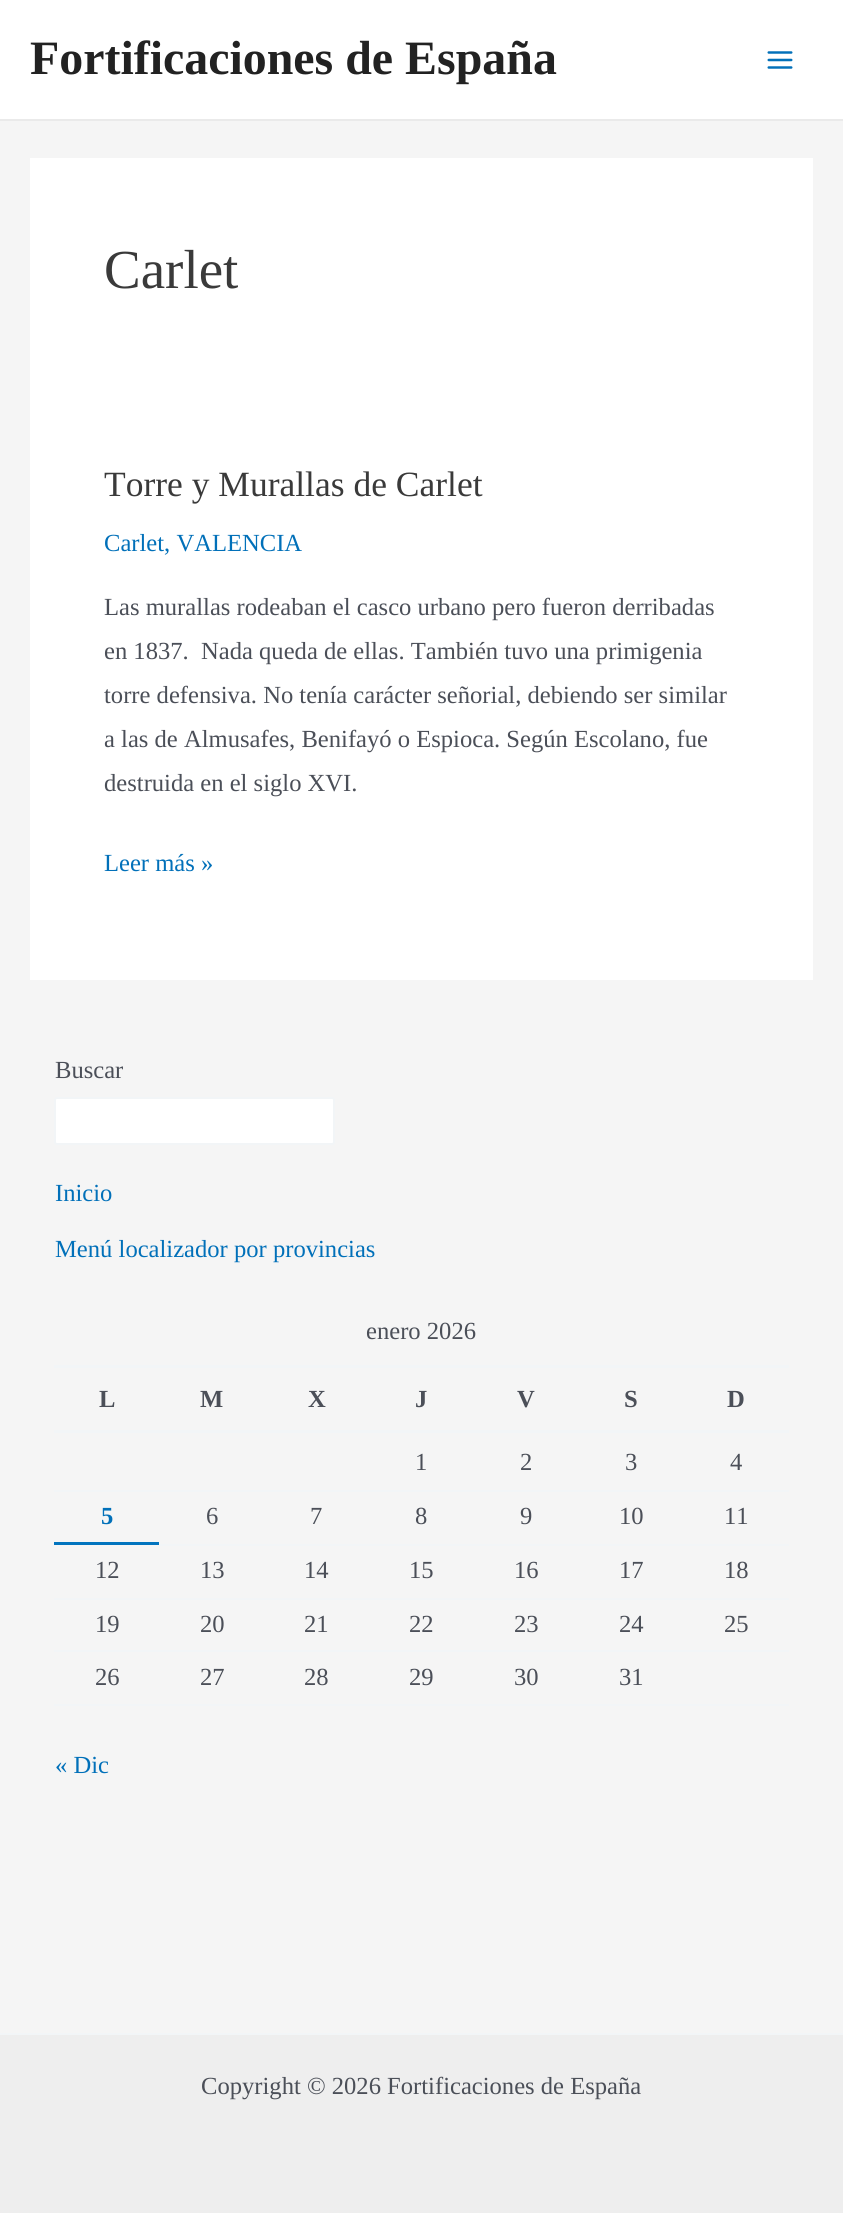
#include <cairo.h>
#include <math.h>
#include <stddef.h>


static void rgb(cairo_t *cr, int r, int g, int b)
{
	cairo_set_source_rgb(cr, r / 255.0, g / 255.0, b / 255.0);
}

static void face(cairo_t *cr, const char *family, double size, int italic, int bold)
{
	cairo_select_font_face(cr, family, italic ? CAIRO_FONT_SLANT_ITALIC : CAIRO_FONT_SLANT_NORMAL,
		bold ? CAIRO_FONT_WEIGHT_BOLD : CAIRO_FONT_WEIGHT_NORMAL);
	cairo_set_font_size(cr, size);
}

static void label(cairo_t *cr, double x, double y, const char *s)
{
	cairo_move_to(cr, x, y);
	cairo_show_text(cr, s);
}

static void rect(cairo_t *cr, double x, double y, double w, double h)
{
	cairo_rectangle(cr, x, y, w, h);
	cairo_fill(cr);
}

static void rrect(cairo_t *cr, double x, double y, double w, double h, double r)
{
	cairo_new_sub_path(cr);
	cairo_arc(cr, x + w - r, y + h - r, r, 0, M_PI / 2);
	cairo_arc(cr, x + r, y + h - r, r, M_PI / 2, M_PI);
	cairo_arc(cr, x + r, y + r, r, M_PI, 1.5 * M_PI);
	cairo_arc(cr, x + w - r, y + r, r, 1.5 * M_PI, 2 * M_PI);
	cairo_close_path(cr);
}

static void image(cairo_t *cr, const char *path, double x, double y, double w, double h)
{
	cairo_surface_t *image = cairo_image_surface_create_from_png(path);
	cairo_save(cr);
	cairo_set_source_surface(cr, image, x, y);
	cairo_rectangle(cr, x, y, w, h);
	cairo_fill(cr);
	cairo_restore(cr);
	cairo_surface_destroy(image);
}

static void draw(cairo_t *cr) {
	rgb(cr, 245, 245, 245);
	cairo_paint(cr);
	rgb(cr, 255, 255, 255);
	rect(cr, 0, 0, 843, 119);
	rgb(cr, 234, 234, 234);
	rect(cr, 0, 119, 843, 2);
	face(cr, "Liberation Serif", 47.9, 0, 1);
	rgb(cr, 34, 34, 34);
	label(cr, 30, 74, "Fortificaciones de España");
	image(cr, "image0.png", 767, 51, 26, 18);
	rgb(cr, 255, 255, 255);
	rect(cr, 30, 158, 783, 822);
	face(cr, "Liberation Serif", 55, 0, 0);
	rgb(cr, 58, 58, 58);
	label(cr, 104, 288, "Carlet");
	face(cr, "Liberation Serif", 35.5, 0, 0);
	label(cr, 104, 496, "Torre y Murallas de Carlet");
	face(cr, "Liberation Serif", 24.6, 0, 0);
	rgb(cr, 1, 112, 185);
	label(cr, 104, 551, "Carlet, VALENCIA");
	rgb(cr, 75, 79, 88);
	label(cr, 104, 615, "Las murallas rodeaban el casco urbano pero fueron derribadas");
	label(cr, 104, 659, "en 1837.  Nada queda de ellas. También tuvo una primigenia");
	label(cr, 104, 703, "torre defensiva. No tenía carácter señorial, debiendo ser similar");
	label(cr, 104, 747, "a las de Almusafes, Benifayó o Espioca. Según Escolano, fue");
	label(cr, 104, 791, "destruida en el siglo XVI.");
	rgb(cr, 1, 112, 185);
	label(cr, 104, 871, "Leer más »");
	rgb(cr, 75, 79, 88);
	label(cr, 55, 1078, "Buscar");
	rgb(cr, 255, 255, 255);
	rrect(cr, 55, 1098, 279, 46, 2);
	cairo_fill_preserve(cr);
	rgb(cr, 242, 245, 247);
	cairo_stroke(cr);
	rgb(cr, 1, 112, 185);
	label(cr, 55, 1201, "Inicio");
	label(cr, 55, 1257, "Menú localizador por provincias");
	rgb(cr, 75, 79, 88);
	label(cr, 366, 1339, "enero 2026");
	rgb(cr, 242, 245, 247);
	rect(cr, 54, 1365, 735, 3);
	rect(cr, 54, 1430, 735, 3);
	face(cr, "Liberation Serif", 24.6, 0, 1);
	rgb(cr, 75, 79, 88);
	label(cr, 99, 1407, "L");
	label(cr, 200, 1407, "M");
	label(cr, 308, 1407, "X");
	label(cr, 415, 1407, "J");
	label(cr, 517, 1407, "V");
	label(cr, 624, 1407, "S");
	label(cr, 727, 1407, "D");
	face(cr, "Liberation Serif", 24.6, 0, 0);
	label(cr, 415, 1470, "1");
	label(cr, 520, 1470, "2");
	label(cr, 625, 1470, "3");
	label(cr, 730, 1470, "4");
	rgb(cr, 242, 245, 247);
	rect(cr, 54, 1490, 735, 2);
	rgb(cr, 2, 116, 190);
	rect(cr, 54, 1542, 105, 3);
	face(cr, "Liberation Serif", 24.6, 0, 1);
	rgb(cr, 1, 112, 185);
	label(cr, 101, 1524, "5");
	rgb(cr, 242, 245, 247);
	rect(cr, 159, 1544, 630, 2);
	face(cr, "Liberation Serif", 24.6, 0, 0);
	rgb(cr, 75, 79, 88);
	label(cr, 206, 1524, "6");
	label(cr, 310, 1524, "7");
	label(cr, 415, 1524, "8");
	label(cr, 520, 1524, "9");
	label(cr, 619, 1524, "10");
	label(cr, 724, 1524, "11");
	rgb(cr, 242, 245, 247);
	rect(cr, 54, 1598, 735, 2);
	rgb(cr, 75, 79, 88);
	label(cr, 95, 1578, "12");
	label(cr, 200, 1578, "13");
	label(cr, 304, 1578, "14");
	label(cr, 409, 1578, "15");
	label(cr, 514, 1578, "16");
	label(cr, 619, 1578, "17");
	label(cr, 724, 1578, "18");
	rgb(cr, 242, 245, 247);
	rect(cr, 54, 1650, 735, 2);
	rgb(cr, 75, 79, 88);
	label(cr, 95, 1632, "19");
	label(cr, 200, 1632, "20");
	label(cr, 304, 1632, "21");
	label(cr, 409, 1632, "22");
	label(cr, 514, 1632, "23");
	label(cr, 619, 1632, "24");
	label(cr, 724, 1632, "25");
	rgb(cr, 242, 245, 247);
	rect(cr, 54, 1704, 735, 2);
	rgb(cr, 75, 79, 88);
	label(cr, 95, 1685, "26");
	label(cr, 200, 1685, "27");
	label(cr, 304, 1685, "28");
	label(cr, 409, 1685, "29");
	label(cr, 514, 1685, "30");
	label(cr, 619, 1685, "31");
	rgb(cr, 1, 112, 185);
	label(cr, 55, 1773, "« Dic");
	rgb(cr, 238, 238, 238);
	rect(cr, 0, 2035, 843, 178);
	rgb(cr, 242, 245, 247);
	rect(cr, 0, 2033, 843, 2);
	rgb(cr, 75, 79, 88);
	label(cr, 201, 2094, "Copyright © 2026 Fortificaciones de España");
}

int main(void) {
	cairo_surface_t *surface = cairo_image_surface_create(CAIRO_FORMAT_RGB24, 843, 2213);
	cairo_t *cr = cairo_create(surface);
	cairo_font_options_t *options = cairo_font_options_create();
	cairo_font_options_set_hint_metrics(options, CAIRO_HINT_METRICS_OFF);
	cairo_font_options_set_hint_style(options, CAIRO_HINT_STYLE_NONE);
	cairo_set_font_options(cr, options);
	cairo_set_miter_limit(cr, 4);
	draw(cr);
	cairo_surface_write_to_png(surface, "render.png");
	cairo_font_options_destroy(options);
	cairo_destroy(cr);
	cairo_surface_destroy(surface);
	return 0;
}
